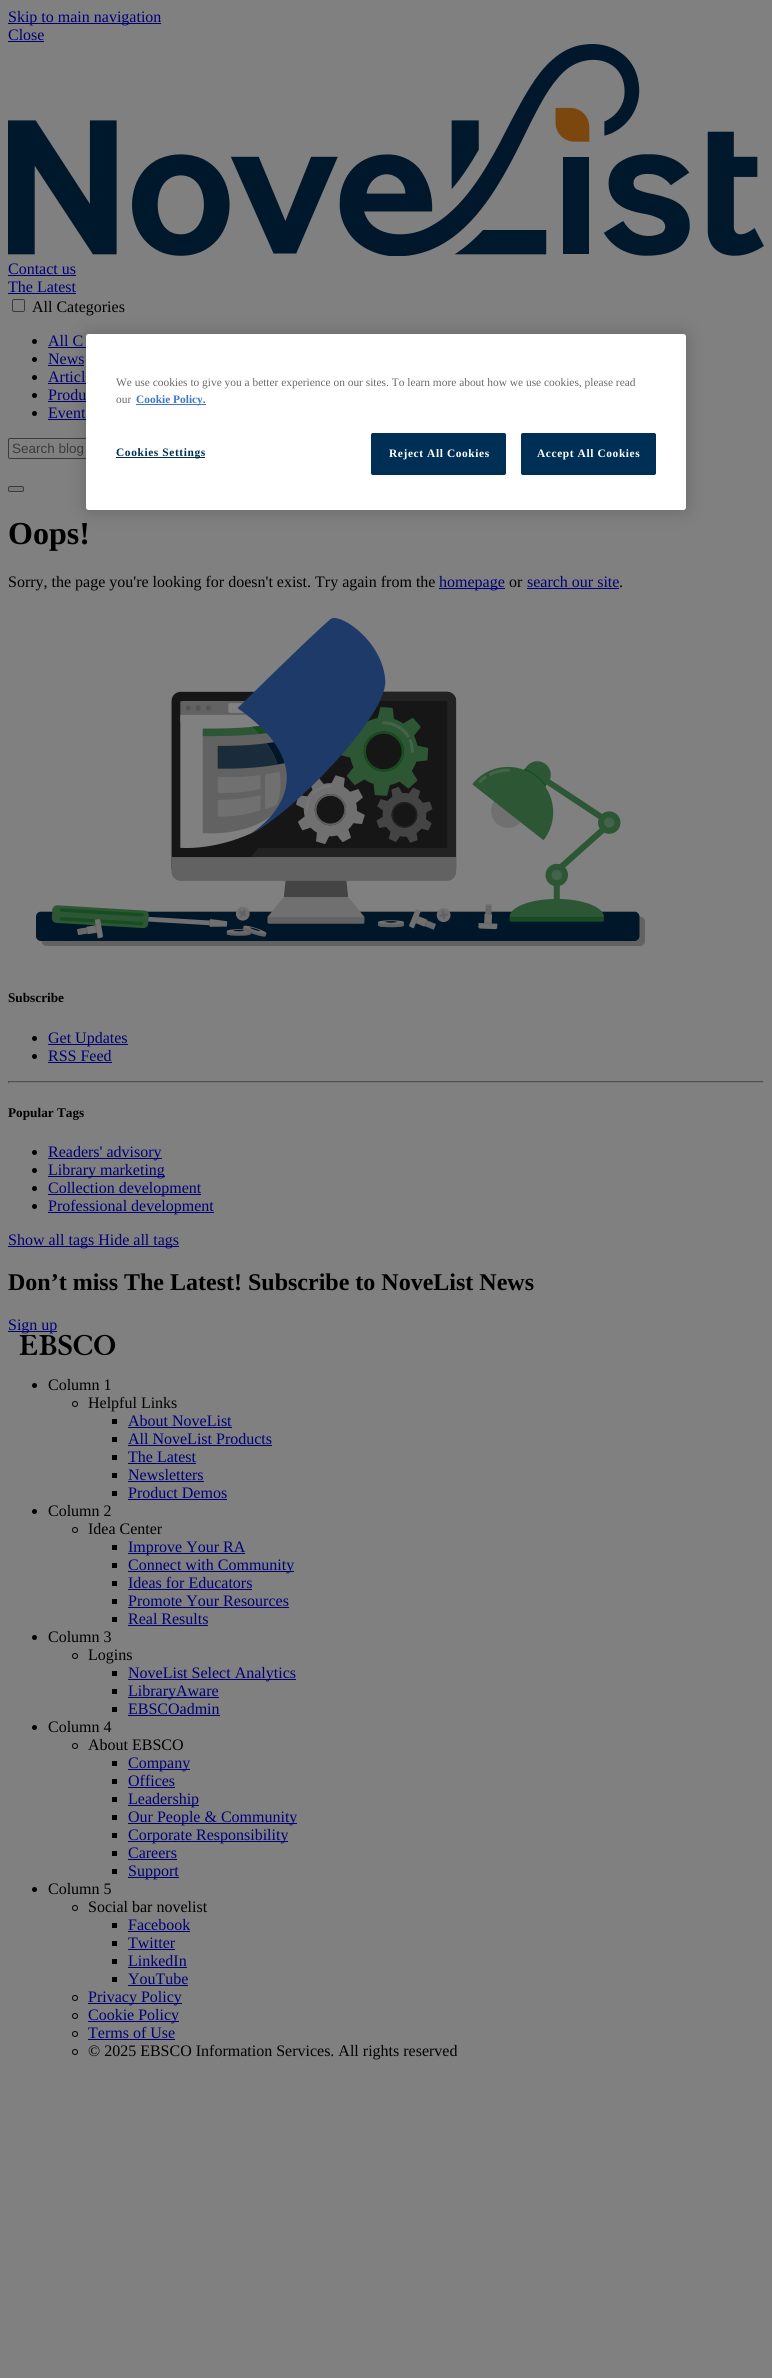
#include <cairo.h>
#include <math.h>
#include <stddef.h>


static void rgb(cairo_t *cr, int r, int g, int b)
{
	cairo_set_source_rgb(cr, r / 255.0, g / 255.0, b / 255.0);
}

static void face(cairo_t *cr, const char *family, double size, int italic, int bold)
{
	cairo_select_font_face(cr, family, italic ? CAIRO_FONT_SLANT_ITALIC : CAIRO_FONT_SLANT_NORMAL,
		bold ? CAIRO_FONT_WEIGHT_BOLD : CAIRO_FONT_WEIGHT_NORMAL);
	cairo_set_font_size(cr, size);
}

static void label(cairo_t *cr, double x, double y, const char *s)
{
	cairo_move_to(cr, x, y);
	cairo_show_text(cr, s);
}

static void tracked(cairo_t *cr, double x, double y, const char *s, double letter, double word)
{
	cairo_move_to(cr, x, y);
	while (*s) {
		char ch[5] = {0};
		int n = 0;
		do ch[n++] = *s++; while ((*s & 0xC0) == 0x80);
		cairo_show_text(cr, ch);
		cairo_rel_move_to(cr, letter + word * (*ch == ' '), 0);
	}
}

static void rect(cairo_t *cr, double x, double y, double w, double h)
{
	cairo_rectangle(cr, x, y, w, h);
	cairo_fill(cr);
}

static void rrect(cairo_t *cr, double x, double y, double w, double h, double r)
{
	cairo_new_sub_path(cr);
	cairo_arc(cr, x + w - r, y + h - r, r, 0, M_PI / 2);
	cairo_arc(cr, x + r, y + h - r, r, M_PI / 2, M_PI);
	cairo_arc(cr, x + r, y + r, r, M_PI, 1.5 * M_PI);
	cairo_arc(cr, x + w - r, y + r, r, 1.5 * M_PI, 2 * M_PI);
	cairo_close_path(cr);
}

static void soft_shadow(cairo_t *cr, double x, double y, double w, double h, double r, double blur, double alpha)
{
	cairo_push_group_with_content(cr, CAIRO_CONTENT_ALPHA);
	cairo_set_operator(cr, CAIRO_OPERATOR_SOURCE);
	for (int i = 15; i >= -15 && fmin(w, h) + blur * i / 3 > 0; i -= 2) {
		double e = blur * i / 6;
		cairo_set_source_rgba(cr, 0, 0, 0, alpha * erfc((i - 1) / 8.5) / 2);
		rrect(cr, x - e, y - e, w + 2 * e, h + 2 * e, fmax(0, fmin(r + e + blur * .6, fmin(w, h) / 2 + e)));
		cairo_fill(cr);
	}
	cairo_pattern_t *soft = cairo_pop_group(cr);
	cairo_mask(cr, soft);
	cairo_pattern_destroy(soft);
}

static void image(cairo_t *cr, const char *path, double x, double y, double w, double h)
{
	cairo_surface_t *image = cairo_image_surface_create_from_png(path);
	cairo_save(cr);
	cairo_set_source_surface(cr, image, x, y);
	cairo_rectangle(cr, x, y, w, h);
	cairo_fill(cr);
	cairo_restore(cr);
	cairo_surface_destroy(image);
}

static void draw(cairo_t *cr) {
	rgb(cr, 128, 128, 128);
	cairo_paint(cr);
	rgb(cr, 0, 0, 119);
	rect(cr, 8, 23, 153, 1);
	face(cr, "Liberation Serif", 16, 0, 0);
	label(cr, 8, 22, "Skip to main navigation");
	label(cr, 8, 40, "Close");
	rect(cr, 8, 41, 36, 1);
	image(cr, "image0.png", 8, 44, 756, 212);
	label(cr, 8, 274, "Contact us");
	rect(cr, 8, 275, 68, 1);
	label(cr, 8, 292, "The Latest");
	rect(cr, 8, 293, 68, 1);
	rrect(cr, 12.5, 299.5, 12, 12, 1.5);
	rgb(cr, 59, 59, 59);
	cairo_set_line_width(cr, 1);
	cairo_stroke(cr);
	rgb(cr, 0, 0, 0);
	label(cr, 32, 312, "All Categories");
	cairo_new_path(cr);
	cairo_arc(cr, 34.5, 341.5, 2.5, 0, 2 * M_PI);
	cairo_fill(cr);
	rgb(cr, 0, 0, 119);
	label(cr, 48, 346, "All C");
	rect(cr, 48, 347, 38, 1);
	rgb(cr, 0, 0, 0);
	cairo_new_path(cr);
	cairo_arc(cr, 34.5, 359.5, 2.5, 0, 2 * M_PI);
	cairo_fill(cr);
	rgb(cr, 0, 0, 119);
	label(cr, 48, 364, "News");
	rect(cr, 48, 365, 36, 1);
	rgb(cr, 0, 0, 0);
	cairo_new_path(cr);
	cairo_arc(cr, 34.5, 377.5, 2.5, 0, 2 * M_PI);
	cairo_fill(cr);
	rgb(cr, 0, 0, 119);
	label(cr, 48, 382, "Articl");
	rect(cr, 48, 383, 38, 1);
	rgb(cr, 0, 0, 0);
	cairo_new_path(cr);
	cairo_arc(cr, 34.5, 395.5, 2.5, 0, 2 * M_PI);
	cairo_fill(cr);
	rgb(cr, 0, 0, 119);
	label(cr, 48, 400, "Produ");
	rect(cr, 48, 401, 38, 1);
	rgb(cr, 0, 0, 0);
	cairo_new_path(cr);
	cairo_arc(cr, 34.5, 413.5, 2.5, 0, 2 * M_PI);
	cairo_fill(cr);
	rgb(cr, 0, 0, 119);
	label(cr, 48, 418, "Event");
	rect(cr, 48, 419, 44, 1);
	rrect(cr, 8.5, 438.5, 264, 20, 1.5);
	rgb(cr, 59, 59, 59);
	cairo_stroke(cr);
	face(cr, "Liberation Sans", 13.5, 0, 0);
	label(cr, 12, 453, "Search blog");
	rgb(cr, 120, 120, 120);
	rrect(cr, 8.5, 486.5, 15, 5, 1.5);
	cairo_fill_preserve(cr);
	rgb(cr, 59, 59, 59);
	cairo_stroke(cr);
	face(cr, "Liberation Serif", 32, 0, 1);
	rgb(cr, 0, 0, 0);
	label(cr, 8, 544, "Oops!");
	face(cr, "Liberation Serif", 16, 0, 0);
	label(cr, 8, 587, "Sorry, the page you're looking for doesn't exist. Try again from the");
	rgb(cr, 0, 0, 119);
	rect(cr, 439, 588, 66, 1);
	label(cr, 439, 587, "homepage");
	rgb(cr, 0, 0, 0);
	label(cr, 509, 587, "or");
	rgb(cr, 0, 0, 119);
	label(cr, 527, 587, "search our site");
	rect(cr, 527, 588, 92, 1);
	rgb(cr, 0, 0, 0);
	label(cr, 619, 587, ".");
	image(cr, "image1.png", 36, 618, 609, 328);
	face(cr, "Liberation Serif", 13.25, 0, 1);
	label(cr, 8, 1002, "Subscribe");
	cairo_new_path(cr);
	cairo_arc(cr, 34.5, 1038.5, 2.5, 0, 2 * M_PI);
	cairo_fill(cr);
	rgb(cr, 0, 0, 119);
	rect(cr, 48, 1044, 80, 1);
	face(cr, "Liberation Serif", 16, 0, 0);
	label(cr, 48, 1043, "Get Updates");
	rgb(cr, 0, 0, 0);
	cairo_new_path(cr);
	cairo_arc(cr, 34.5, 1056.5, 2.5, 0, 2 * M_PI);
	cairo_fill(cr);
	rgb(cr, 0, 0, 119);
	label(cr, 48, 1061, "RSS Feed");
	rect(cr, 48, 1062, 64, 1);
	rgb(cr, 80, 80, 80);
	rect(cr, 8, 1081, 756, 1);
	rgb(cr, 119, 119, 119);
	rect(cr, 763, 1081, 1, 2);
	rect(cr, 8, 1082, 756, 1);
	rgb(cr, 80, 80, 80);
	rect(cr, 8, 1081, 1, 2);
	face(cr, "Liberation Serif", 13.25, 0, 1);
	rgb(cr, 0, 0, 0);
	label(cr, 8, 1117, "Popular Tags");
	cairo_new_path(cr);
	cairo_arc(cr, 34.5, 1152.5, 2.5, 0, 2 * M_PI);
	cairo_fill(cr);
	rgb(cr, 0, 0, 119);
	rect(cr, 48, 1158, 114, 1);
	face(cr, "Liberation Serif", 16, 0, 0);
	label(cr, 48, 1157, "Readers' advisory");
	rgb(cr, 0, 0, 0);
	cairo_new_path(cr);
	cairo_arc(cr, 34.5, 1170.5, 2.5, 0, 2 * M_PI);
	cairo_fill(cr);
	rgb(cr, 0, 0, 119);
	rect(cr, 48, 1176, 117, 1);
	label(cr, 48, 1175, "Library marketing");
	rgb(cr, 0, 0, 0);
	cairo_new_path(cr);
	cairo_arc(cr, 34.5, 1188.5, 2.5, 0, 2 * M_PI);
	cairo_fill(cr);
	rgb(cr, 0, 0, 119);
	rect(cr, 48, 1194, 153, 1);
	label(cr, 48, 1193, "Collection development");
	rgb(cr, 0, 0, 0);
	cairo_new_path(cr);
	cairo_arc(cr, 34.5, 1206.5, 2.5, 0, 2 * M_PI);
	cairo_fill(cr);
	rgb(cr, 0, 0, 119);
	rect(cr, 48, 1212, 166, 1);
	label(cr, 48, 1211, "Professional development");
	rect(cr, 8, 1246, 171, 1);
	label(cr, 8, 1245, "Show all tags Hide all tags");
	face(cr, "Liberation Serif", 24, 0, 1);
	rgb(cr, 0, 0, 0);
	label(cr, 8, 1290, "Don’t miss The Latest! Subscribe to NoveList News");
	rgb(cr, 0, 0, 119);
	rect(cr, 8, 1331, 49, 1);
	face(cr, "Liberation Serif", 16, 0, 0);
	label(cr, 8, 1330, "Sign up");
	image(cr, "image2.png", 19, 1334, 97, 22);
	rgb(cr, 0, 0, 0);
	cairo_arc(cr, 34.5, 1385.5, 2.5, 0, 2 * M_PI);
	cairo_fill(cr);
	label(cr, 48, 1390, "Column 1");
	cairo_new_path(cr);
	cairo_arc(cr, 75, 1404, 2.5, 0, 2 * M_PI);
	cairo_stroke(cr);
	label(cr, 88, 1408, "Helpful Links");
	rect(cr, 112, 1419, 5, 5);
	rgb(cr, 0, 0, 119);
	label(cr, 128, 1426, "About NoveList");
	rect(cr, 128, 1427, 104, 1);
	rgb(cr, 0, 0, 0);
	rect(cr, 112, 1437, 5, 5);
	rgb(cr, 0, 0, 119);
	label(cr, 128, 1444, "All NoveList Products");
	rect(cr, 128, 1445, 144, 1);
	rgb(cr, 0, 0, 0);
	rect(cr, 112, 1455, 5, 5);
	rgb(cr, 0, 0, 119);
	label(cr, 128, 1462, "The Latest");
	rect(cr, 128, 1463, 68, 1);
	rgb(cr, 0, 0, 0);
	rect(cr, 112, 1473, 5, 5);
	rgb(cr, 0, 0, 119);
	label(cr, 128, 1480, "Newsletters");
	rect(cr, 128, 1481, 76, 1);
	rgb(cr, 0, 0, 0);
	rect(cr, 112, 1491, 5, 5);
	rgb(cr, 0, 0, 119);
	label(cr, 128, 1498, "Product Demos");
	rect(cr, 128, 1499, 99, 1);
	rgb(cr, 0, 0, 0);
	cairo_new_path(cr);
	cairo_arc(cr, 34.5, 1511.5, 2.5, 0, 2 * M_PI);
	cairo_fill(cr);
	label(cr, 48, 1516, "Column 2");
	cairo_new_path(cr);
	cairo_arc(cr, 75, 1530, 2.5, 0, 2 * M_PI);
	cairo_stroke(cr);
	label(cr, 88, 1534, "Idea Center");
	rect(cr, 112, 1545, 5, 5);
	rgb(cr, 0, 0, 119);
	rect(cr, 128, 1553, 117, 1);
	label(cr, 128, 1552, "Improve Your RA");
	rgb(cr, 0, 0, 0);
	rect(cr, 112, 1563, 5, 5);
	rgb(cr, 0, 0, 119);
	rect(cr, 128, 1571, 166, 1);
	label(cr, 128, 1570, "Connect with Community");
	rgb(cr, 0, 0, 0);
	rect(cr, 112, 1581, 5, 5);
	rgb(cr, 0, 0, 119);
	label(cr, 128, 1588, "Ideas for Educators");
	rect(cr, 128, 1589, 124, 1);
	rgb(cr, 0, 0, 0);
	rect(cr, 112, 1599, 5, 5);
	rgb(cr, 0, 0, 119);
	label(cr, 128, 1606, "Promote Your Resources");
	rect(cr, 128, 1607, 161, 1);
	rgb(cr, 0, 0, 0);
	rect(cr, 112, 1617, 5, 5);
	rgb(cr, 0, 0, 119);
	label(cr, 128, 1624, "Real Results");
	rect(cr, 128, 1625, 80, 1);
	rgb(cr, 0, 0, 0);
	cairo_new_path(cr);
	cairo_arc(cr, 34.5, 1637.5, 2.5, 0, 2 * M_PI);
	cairo_fill(cr);
	label(cr, 48, 1642, "Column 3");
	cairo_new_path(cr);
	cairo_arc(cr, 75, 1656, 2.5, 0, 2 * M_PI);
	cairo_stroke(cr);
	label(cr, 88, 1660, "Logins");
	rect(cr, 112, 1671, 5, 5);
	rgb(cr, 0, 0, 119);
	rect(cr, 128, 1679, 168, 1);
	label(cr, 128, 1678, "NoveList Select Analytics");
	rgb(cr, 0, 0, 0);
	rect(cr, 112, 1689, 5, 5);
	rgb(cr, 0, 0, 119);
	rect(cr, 128, 1697, 91, 1);
	label(cr, 128, 1696, "LibraryAware");
	rgb(cr, 0, 0, 0);
	rect(cr, 112, 1707, 5, 5);
	rgb(cr, 0, 0, 119);
	label(cr, 128, 1714, "EBSCOadmin");
	rect(cr, 128, 1715, 92, 1);
	rgb(cr, 0, 0, 0);
	cairo_new_path(cr);
	cairo_arc(cr, 34.5, 1727.5, 2.5, 0, 2 * M_PI);
	cairo_fill(cr);
	label(cr, 48, 1732, "Column 4");
	cairo_new_path(cr);
	cairo_arc(cr, 75, 1746, 2.5, 0, 2 * M_PI);
	cairo_stroke(cr);
	label(cr, 88, 1750, "About EBSCO");
	rect(cr, 112, 1761, 5, 5);
	rgb(cr, 0, 0, 119);
	rect(cr, 128, 1769, 62, 1);
	label(cr, 128, 1768, "Company");
	rgb(cr, 0, 0, 0);
	rect(cr, 112, 1779, 5, 5);
	rgb(cr, 0, 0, 119);
	label(cr, 128, 1786, "Offices");
	rect(cr, 128, 1787, 47, 1);
	rgb(cr, 0, 0, 0);
	rect(cr, 112, 1797, 5, 5);
	rgb(cr, 0, 0, 119);
	rect(cr, 128, 1805, 71, 1);
	label(cr, 128, 1804, "Leadership");
	rgb(cr, 0, 0, 0);
	rect(cr, 112, 1815, 5, 5);
	rgb(cr, 0, 0, 119);
	rect(cr, 128, 1823, 169, 1);
	label(cr, 128, 1822, "Our People & Community");
	rgb(cr, 0, 0, 0);
	rect(cr, 112, 1833, 5, 5);
	rgb(cr, 0, 0, 119);
	rect(cr, 128, 1841, 160, 1);
	label(cr, 128, 1840, "Corporate Responsibility");
	rgb(cr, 0, 0, 0);
	rect(cr, 112, 1851, 5, 5);
	rgb(cr, 0, 0, 119);
	label(cr, 128, 1858, "Careers");
	rect(cr, 128, 1859, 49, 1);
	rgb(cr, 0, 0, 0);
	rect(cr, 112, 1869, 5, 5);
	rgb(cr, 0, 0, 119);
	rect(cr, 128, 1877, 51, 1);
	label(cr, 128, 1876, "Support");
	rgb(cr, 0, 0, 0);
	cairo_new_path(cr);
	cairo_arc(cr, 34.5, 1889.5, 2.5, 0, 2 * M_PI);
	cairo_fill(cr);
	label(cr, 48, 1894, "Column 5");
	cairo_new_path(cr);
	cairo_arc(cr, 75, 1908, 2.5, 0, 2 * M_PI);
	cairo_stroke(cr);
	label(cr, 88, 1912, "Social bar novelist");
	rect(cr, 112, 1923, 5, 5);
	rgb(cr, 0, 0, 119);
	label(cr, 128, 1930, "Facebook");
	rect(cr, 128, 1931, 62, 1);
	rgb(cr, 0, 0, 0);
	rect(cr, 112, 1941, 5, 5);
	rgb(cr, 0, 0, 119);
	label(cr, 128, 1948, "Twitter");
	rect(cr, 128, 1949, 47, 1);
	rgb(cr, 0, 0, 0);
	rect(cr, 112, 1959, 5, 5);
	rgb(cr, 0, 0, 119);
	label(cr, 128, 1966, "LinkedIn");
	rect(cr, 128, 1967, 59, 1);
	rgb(cr, 0, 0, 0);
	rect(cr, 112, 1977, 5, 5);
	rgb(cr, 0, 0, 119);
	label(cr, 128, 1984, "YouTube");
	rect(cr, 128, 1985, 60, 1);
	cairo_new_path(cr);
	cairo_arc(cr, 75, 1998, 2.5, 0, 2 * M_PI);
	rgb(cr, 0, 0, 0);
	cairo_stroke(cr);
	rgb(cr, 0, 0, 119);
	rect(cr, 88, 2003, 94, 1);
	label(cr, 88, 2002, "Privacy Policy");
	cairo_new_path(cr);
	cairo_arc(cr, 75, 2016, 2.5, 0, 2 * M_PI);
	rgb(cr, 0, 0, 0);
	cairo_stroke(cr);
	rgb(cr, 0, 0, 119);
	rect(cr, 88, 2021, 91, 1);
	label(cr, 88, 2020, "Cookie Policy");
	cairo_new_path(cr);
	cairo_arc(cr, 75, 2034, 2.5, 0, 2 * M_PI);
	rgb(cr, 0, 0, 0);
	cairo_stroke(cr);
	rgb(cr, 0, 0, 119);
	label(cr, 88, 2038, "Terms of Use");
	rect(cr, 88, 2039, 87, 1);
	cairo_new_path(cr);
	cairo_arc(cr, 75, 2052, 2.5, 0, 2 * M_PI);
	rgb(cr, 0, 0, 0);
	cairo_stroke(cr);
	label(cr, 88, 2056, "© 2025 EBSCO Information Services. All rights reserved");
	rgb(cr, 0, 0, 0);
	soft_shadow(cr, 86, 334, 600, 176, 2.5, 9, 0.2);
	rgb(cr, 255, 255, 255);
	rrect(cr, 86, 334, 600, 176, 2.5);
	cairo_fill(cr);
	face(cr, "Liberation Serif", 11.4, 0, 0);
	rgb(cr, 105, 105, 105);
	label(cr, 116, 386, "We use cookies to give you a better experience on our sites. To learn more about how we use cookies, please read");
	label(cr, 116, 403, "our");
	rgb(cr, 62, 117, 207);
	rect(cr, 136, 404, 70, 1);
	face(cr, "Liberation Serif", 11.4, 0, 1);
	label(cr, 136, 403, "Cookie Policy.");
	rgb(cr, 0, 47, 86);
	rect(cr, 116, 457, 89, 1);
	tracked(cr, 116, 456, "Cookies Settings", 0.6, 0);
	rrect(cr, 371.5, 433.5, 134, 41, 1.5);
	cairo_fill_preserve(cr);
	cairo_stroke(cr);
	rgb(cr, 255, 255, 255);
	tracked(cr, 389, 457, "Reject All Cookies", 0.6, 0);
	rgb(cr, 0, 47, 86);
	rrect(cr, 521.5, 433.5, 134, 41, 1.5);
	cairo_fill_preserve(cr);
	cairo_stroke(cr);
	rgb(cr, 255, 255, 255);
	tracked(cr, 537, 457, "Accept All Cookies", 0.6, 0);
}

int main(void) {
	cairo_surface_t *surface = cairo_image_surface_create(CAIRO_FORMAT_RGB24, 772, 2378);
	cairo_t *cr = cairo_create(surface);
	cairo_font_options_t *options = cairo_font_options_create();
	cairo_font_options_set_hint_metrics(options, CAIRO_HINT_METRICS_OFF);
	cairo_font_options_set_hint_style(options, CAIRO_HINT_STYLE_NONE);
	cairo_set_font_options(cr, options);
	cairo_set_miter_limit(cr, 4);
	draw(cr);
	cairo_surface_write_to_png(surface, "render.png");
	cairo_font_options_destroy(options);
	cairo_destroy(cr);
	cairo_surface_destroy(surface);
	return 0;
}
